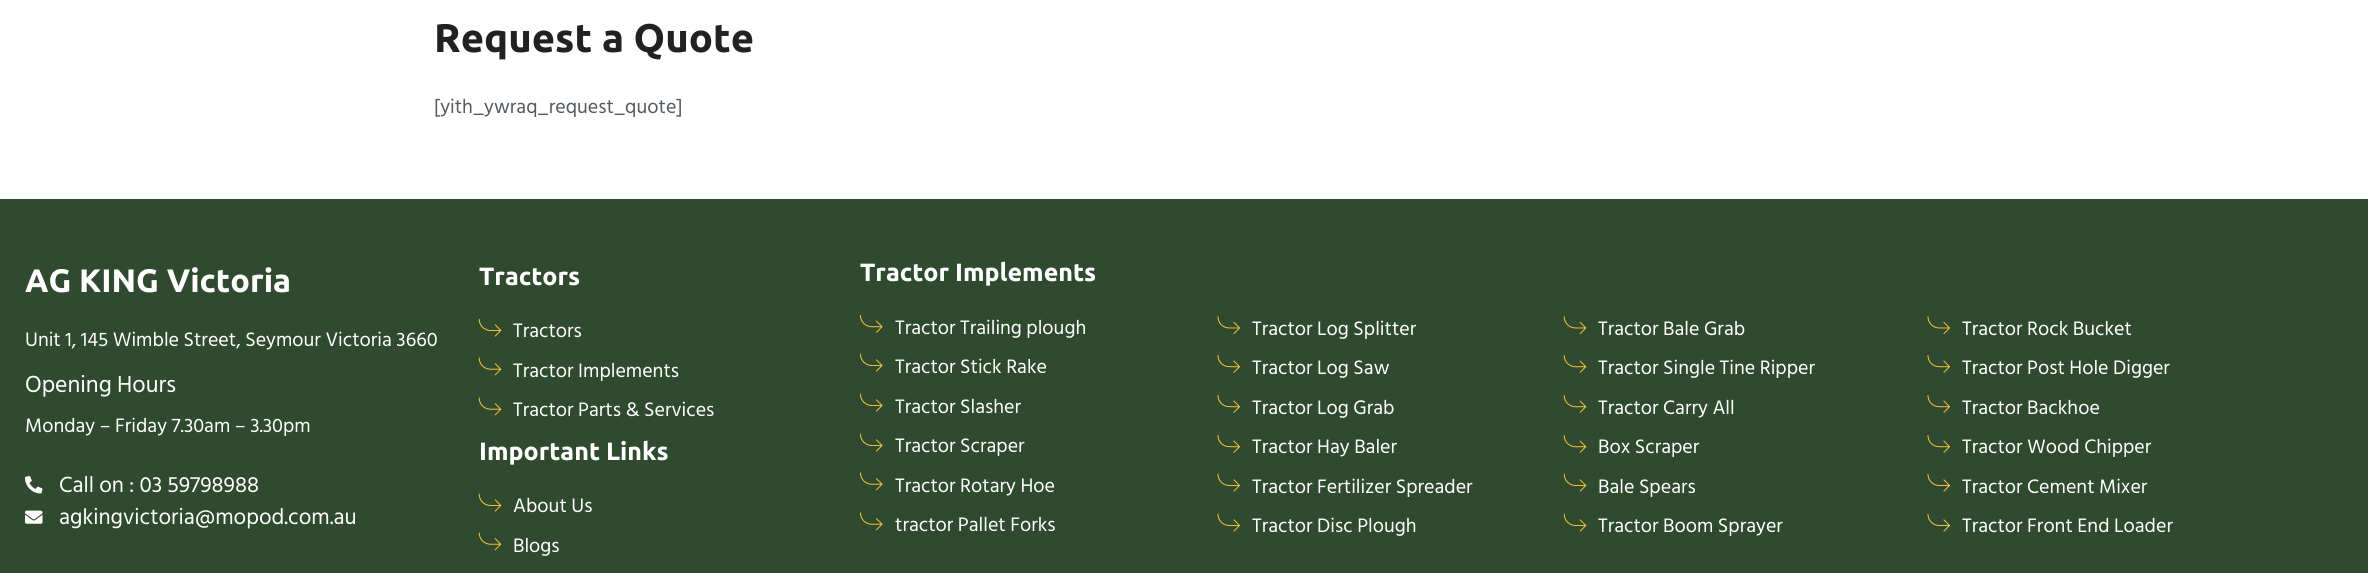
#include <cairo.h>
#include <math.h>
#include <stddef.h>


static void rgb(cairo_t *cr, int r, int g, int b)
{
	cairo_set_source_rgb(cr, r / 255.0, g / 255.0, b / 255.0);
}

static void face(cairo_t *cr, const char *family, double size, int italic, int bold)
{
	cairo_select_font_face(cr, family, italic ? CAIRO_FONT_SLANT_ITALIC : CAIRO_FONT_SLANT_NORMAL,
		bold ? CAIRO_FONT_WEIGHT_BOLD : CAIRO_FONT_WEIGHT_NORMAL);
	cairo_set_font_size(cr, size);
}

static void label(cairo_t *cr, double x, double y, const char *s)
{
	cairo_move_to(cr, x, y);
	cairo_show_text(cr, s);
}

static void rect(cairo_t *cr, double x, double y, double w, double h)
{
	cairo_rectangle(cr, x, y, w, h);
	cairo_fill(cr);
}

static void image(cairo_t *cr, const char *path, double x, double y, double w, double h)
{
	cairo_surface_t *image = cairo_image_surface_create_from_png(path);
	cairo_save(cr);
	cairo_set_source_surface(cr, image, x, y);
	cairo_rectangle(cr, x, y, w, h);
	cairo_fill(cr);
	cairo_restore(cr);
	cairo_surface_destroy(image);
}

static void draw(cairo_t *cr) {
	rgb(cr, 255, 255, 255);
	cairo_paint(cr);
	face(cr, "Ubuntu", 40, 0, 1);
	rgb(cr, 33, 33, 33);
	label(cr, 434, 52, "Request a Quote");
	face(cr, "Hind Siliguri", 20, 0, 0);
	rgb(cr, 84, 89, 95);
	label(cr, 434, 113, "[yith_ywraq_request_quote]");
	rgb(cr, 47, 74, 47);
	rect(cr, 0, 199, 2368, 374);
	face(cr, "Ubuntu", 32.5, 0, 1);
	rgb(cr, 255, 255, 255);
	label(cr, 25, 292, "AG KING Victoria");
	face(cr, "Hind Siliguri", 20, 0, 0);
	label(cr, 25, 346, "Unit 1, 145 Wimble Street, Seymour Victoria 3660");
	face(cr, "Hind Siliguri", 23.75, 0, 0);
	label(cr, 25, 392, "Opening Hours");
	face(cr, "Hind Siliguri", 20, 0, 0);
	label(cr, 25, 432, "Monday – Friday 7.30am – 3.30pm");
	image(cr, "image0.png", 25, 476, 18, 18);
	face(cr, "Hind Siliguri", 22.5, 0, 0);
	label(cr, 59, 492, "Call on : 03 59798988");
	image(cr, "image1.png", 25, 510, 18, 14);
	label(cr, 59, 524, "agkingvictoria@mopod.com.au");
	face(cr, "Ubuntu", 25, 0, 1);
	label(cr, 479, 285, "Tractors");
	image(cr, "image2.png", 478, 318, 24, 19);
	face(cr, "Hind Siliguri", 20, 0, 0);
	label(cr, 513, 337, "Tractors");
	image(cr, "image3.png", 478, 357, 24, 19);
	label(cr, 513, 377, "Tractor Implements");
	image(cr, "image4.png", 478, 397, 24, 19);
	label(cr, 513, 416, "Tractor Parts & Services");
	face(cr, "Ubuntu", 25, 0, 1);
	label(cr, 479, 460, "Important Links");
	image(cr, "image5.png", 478, 493, 24, 19);
	face(cr, "Hind Siliguri", 20, 0, 0);
	label(cr, 513, 512, "About Us");
	image(cr, "image6.png", 478, 532, 24, 19);
	label(cr, 513, 552, "Blogs");
	face(cr, "Ubuntu", 25, 0, 1);
	label(cr, 860, 281, "Tractor Implements");
	image(cr, "image7.png", 860, 315, 23, 18);
	face(cr, "Hind Siliguri", 20, 0, 0);
	label(cr, 895, 334, "Tractor Trailing plough");
	image(cr, "image8.png", 860, 353, 23, 19);
	label(cr, 895, 373, "Tractor Stick Rake");
	image(cr, "image9.png", 860, 393, 23, 19);
	label(cr, 895, 413, "Tractor Slasher");
	image(cr, "image10.png", 860, 433, 23, 19);
	label(cr, 895, 452, "Tractor Scraper");
	image(cr, "image11.png", 860, 472, 23, 19);
	label(cr, 895, 492, "Tractor Rotary Hoe");
	image(cr, "image11.png", 860, 512, 23, 19);
	label(cr, 895, 531, "tractor Pallet Forks");
	image(cr, "image12.png", 1217, 316, 23, 18);
	label(cr, 1252, 335, "Tractor Log Splitter");
	image(cr, "image13.png", 1217, 355, 23, 18);
	label(cr, 1252, 374, "Tractor Log Saw");
	image(cr, "image14.png", 1217, 395, 23, 18);
	label(cr, 1252, 414, "Tractor Log Grab");
	image(cr, "image15.png", 1217, 435, 23, 18);
	label(cr, 1252, 453, "Tractor Hay Baler");
	image(cr, "image16.png", 1217, 473, 23, 19);
	label(cr, 1252, 493, "Tractor Fertilizer Spreader");
	image(cr, "image17.png", 1217, 513, 23, 19);
	label(cr, 1252, 532, "Tractor Disc Plough");
	image(cr, "image18.png", 1563, 316, 24, 18);
	label(cr, 1598, 335, "Tractor Bale Grab");
	image(cr, "image19.png", 1563, 355, 24, 18);
	label(cr, 1598, 374, "Tractor Single Tine Ripper");
	image(cr, "image20.png", 1563, 395, 24, 18);
	label(cr, 1598, 414, "Tractor Carry All");
	image(cr, "image21.png", 1563, 435, 24, 18);
	label(cr, 1598, 453, "Box Scraper");
	image(cr, "image22.png", 1563, 473, 24, 19);
	label(cr, 1598, 493, "Bale Spears");
	image(cr, "image23.png", 1563, 513, 24, 19);
	label(cr, 1598, 532, "Tractor Boom Sprayer");
	image(cr, "image24.png", 1927, 316, 23, 18);
	label(cr, 1962, 335, "Tractor Rock Bucket");
	image(cr, "image25.png", 1927, 355, 23, 18);
	label(cr, 1962, 374, "Tractor Post Hole Digger");
	image(cr, "image26.png", 1927, 395, 23, 18);
	label(cr, 1962, 414, "Tractor Backhoe");
	image(cr, "image27.png", 1927, 435, 23, 18);
	label(cr, 1962, 453, "Tractor Wood Chipper");
	image(cr, "image28.png", 1927, 473, 23, 19);
	label(cr, 1962, 493, "Tractor Cement Mixer");
	image(cr, "image29.png", 1927, 513, 23, 19);
	label(cr, 1962, 532, "Tractor Front End Loader");
}

int main(void) {
	cairo_surface_t *surface = cairo_image_surface_create(CAIRO_FORMAT_RGB24, 2368, 573);
	cairo_t *cr = cairo_create(surface);
	cairo_font_options_t *options = cairo_font_options_create();
	cairo_font_options_set_hint_metrics(options, CAIRO_HINT_METRICS_OFF);
	cairo_font_options_set_hint_style(options, CAIRO_HINT_STYLE_NONE);
	cairo_set_font_options(cr, options);
	cairo_set_miter_limit(cr, 4);
	draw(cr);
	cairo_surface_write_to_png(surface, "render.png");
	cairo_font_options_destroy(options);
	cairo_destroy(cr);
	cairo_surface_destroy(surface);
	return 0;
}
